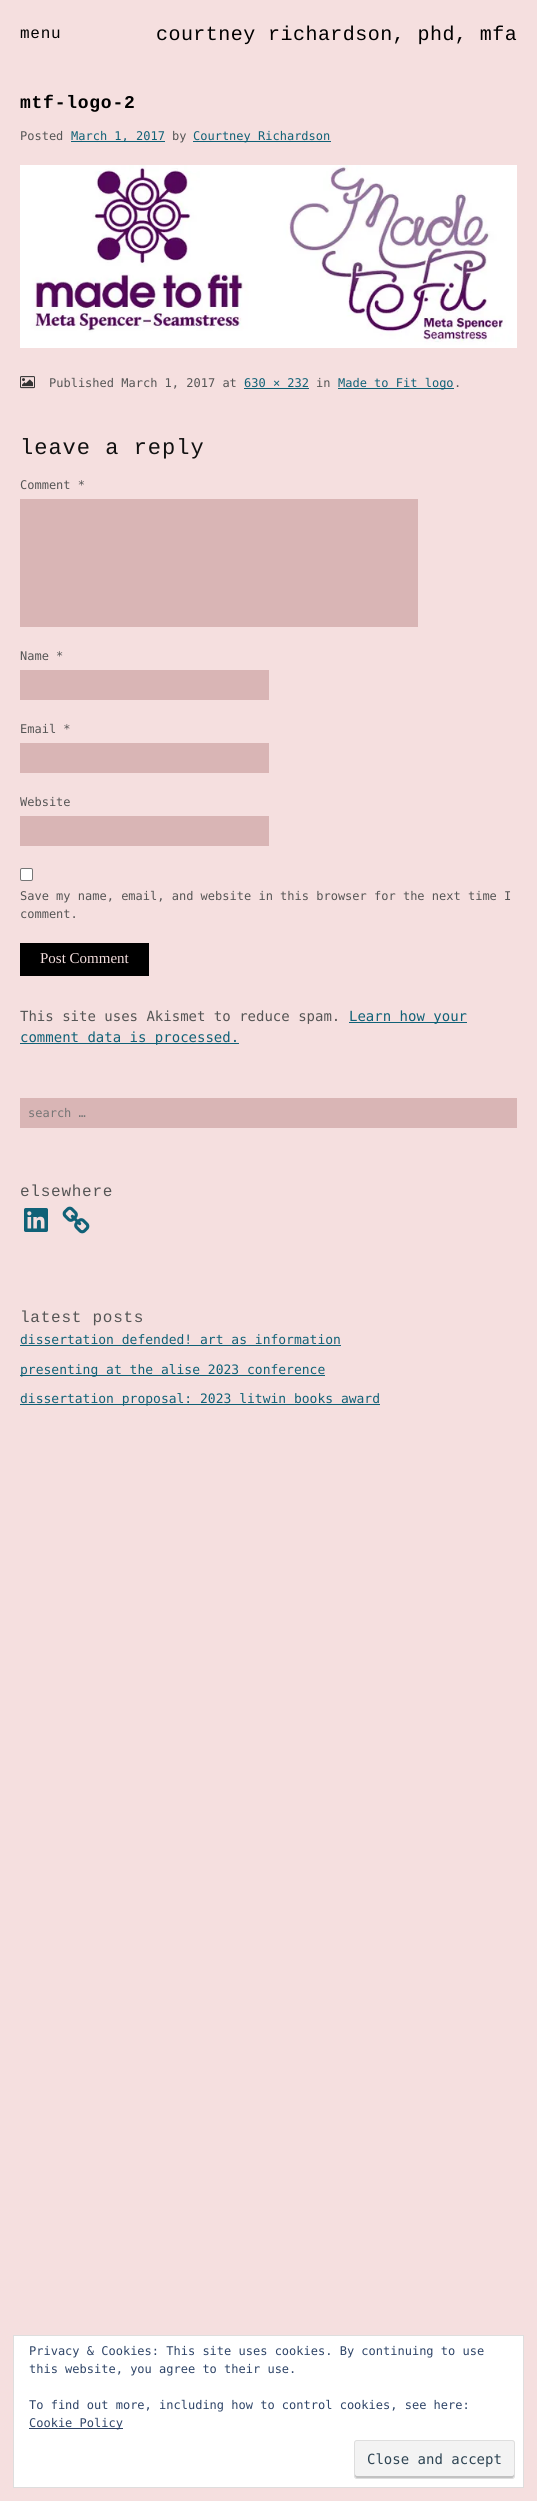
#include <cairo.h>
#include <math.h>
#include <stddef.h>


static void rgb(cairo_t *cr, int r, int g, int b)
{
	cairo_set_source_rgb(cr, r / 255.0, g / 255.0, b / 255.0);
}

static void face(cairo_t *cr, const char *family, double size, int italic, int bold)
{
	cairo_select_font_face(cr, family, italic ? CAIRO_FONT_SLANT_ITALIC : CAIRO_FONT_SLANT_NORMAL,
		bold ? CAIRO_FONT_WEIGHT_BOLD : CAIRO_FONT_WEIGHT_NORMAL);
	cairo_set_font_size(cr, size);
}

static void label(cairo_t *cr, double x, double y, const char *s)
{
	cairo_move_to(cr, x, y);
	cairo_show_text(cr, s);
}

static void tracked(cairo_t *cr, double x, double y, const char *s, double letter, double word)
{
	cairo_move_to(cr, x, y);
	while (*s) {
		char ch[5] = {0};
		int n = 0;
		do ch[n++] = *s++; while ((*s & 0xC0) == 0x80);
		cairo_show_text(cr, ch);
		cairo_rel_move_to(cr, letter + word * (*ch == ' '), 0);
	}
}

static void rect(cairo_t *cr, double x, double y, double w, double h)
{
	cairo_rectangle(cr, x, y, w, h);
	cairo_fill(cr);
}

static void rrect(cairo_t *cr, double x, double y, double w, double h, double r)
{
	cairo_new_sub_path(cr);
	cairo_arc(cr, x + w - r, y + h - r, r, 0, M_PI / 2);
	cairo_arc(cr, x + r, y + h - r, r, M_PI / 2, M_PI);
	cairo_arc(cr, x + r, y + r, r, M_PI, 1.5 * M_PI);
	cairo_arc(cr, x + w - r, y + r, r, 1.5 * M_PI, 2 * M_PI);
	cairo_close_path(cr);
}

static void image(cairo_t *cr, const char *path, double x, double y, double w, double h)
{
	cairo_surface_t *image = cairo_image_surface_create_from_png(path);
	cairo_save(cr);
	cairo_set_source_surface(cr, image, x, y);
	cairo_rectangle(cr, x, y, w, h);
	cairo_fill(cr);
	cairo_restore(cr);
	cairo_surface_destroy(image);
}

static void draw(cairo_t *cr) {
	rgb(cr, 245, 223, 223);
	cairo_paint(cr);
	face(cr, "Liberation Mono", 16, 0, 0);
	rgb(cr, 0, 0, 0);
	tracked(cr, 20, 38, "menu", 0.75, 0);
	face(cr, "Liberation Mono", 20, 0, 0);
	tracked(cr, 156, 40, "courtney richardson, phd, mfa", 0.45, 0);
	face(cr, "Liberation Mono", 18, 0, 1);
	tracked(cr, 20, 108, "mtf-logo-2", 0.75, 0);
	face(cr, "DejaVu Sans Mono", 12, 0, 0);
	rgb(cr, 85, 85, 85);
	label(cr, 20, 140, "Posted");
	rgb(cr, 16, 97, 119);
	rect(cr, 71, 141, 94, 1);
	label(cr, 71, 140, "March 1, 2017");
	rgb(cr, 85, 85, 85);
	label(cr, 172, 140, "by");
	rgb(cr, 16, 97, 119);
	rect(cr, 193, 141, 138, 1);
	label(cr, 193, 140, "Courtney Richardson");
	image(cr, "image0.png", 20, 165, 497, 183);
	image(cr, "image1.png", 20, 376, 15, 13);
	rgb(cr, 85, 85, 85);
	label(cr, 49, 387, "Published March 1, 2017 at");
	rgb(cr, 16, 97, 119);
	label(cr, 244, 387, "630 × 232");
	rect(cr, 244, 388, 65, 1);
	rgb(cr, 85, 85, 85);
	label(cr, 316, 387, "in");
	rgb(cr, 16, 97, 119);
	rect(cr, 338, 388, 116, 1);
	label(cr, 338, 387, "Made to Fit logo");
	rgb(cr, 85, 85, 85);
	label(cr, 454, 387, ".");
	face(cr, "Liberation Mono", 22, 0, 0);
	rgb(cr, 17, 17, 17);
	tracked(cr, 20, 454, "leave a reply", 1, 0);
	face(cr, "DejaVu Sans Mono", 12, 0, 0);
	rgb(cr, 85, 85, 85);
	label(cr, 20, 489, "Comment *");
	rgb(cr, 217, 181, 181);
	rect(cr, 20, 499, 398, 128);
	rgb(cr, 85, 85, 85);
	label(cr, 20, 660, "Name *");
	rgb(cr, 217, 181, 181);
	rect(cr, 20, 670, 249, 30);
	rgb(cr, 85, 85, 85);
	label(cr, 20, 733, "Email *");
	rgb(cr, 217, 181, 181);
	rect(cr, 20, 743, 249, 30);
	rgb(cr, 85, 85, 85);
	label(cr, 20, 806, "Website");
	rgb(cr, 217, 181, 181);
	rect(cr, 20, 816, 249, 30);
	rgb(cr, 255, 255, 255);
	rrect(cr, 20.5, 868.5, 12, 12, 1.5);
	cairo_fill_preserve(cr);
	rgb(cr, 118, 118, 118);
	cairo_set_line_width(cr, 1);
	cairo_stroke(cr);
	rgb(cr, 85, 85, 85);
	label(cr, 20, 900, "Save my name, email, and website in this browser for the next time I");
	label(cr, 20, 918, "comment.");
	rgb(cr, 0, 0, 0);
	rect(cr, 20, 943, 129, 33);
	face(cr, "Liberation Serif", 15, 0, 0);
	rgb(cr, 245, 223, 223);
	label(cr, 40, 963, "Post Comment");
	face(cr, "DejaVu Sans Mono", 14, 0, 0);
	rgb(cr, 85, 85, 85);
	label(cr, 20, 1021, "This site uses Akismet to reduce spam.");
	rgb(cr, 16, 97, 119);
	rect(cr, 349, 1022, 118, 1);
	label(cr, 349, 1021, "Learn how your");
	rect(cr, 20, 1043, 219, 1);
	label(cr, 20, 1042, "comment data is processed.");
	rgb(cr, 217, 181, 181);
	rect(cr, 20, 1098, 497, 30);
	face(cr, "DejaVu Sans Mono", 12, 0, 0);
	rgb(cr, 117, 117, 117);
	label(cr, 28, 1117, "search …");
	face(cr, "Liberation Mono", 16, 0, 0);
	rgb(cr, 85, 85, 85);
	tracked(cr, 20, 1196, "elsewhere", 0.75, 0);
	image(cr, "image2.png", 24, 1208, 24, 24);
	image(cr, "image3.png", 62, 1206, 28, 28);
	tracked(cr, 20, 1322, "latest posts", 0.75, 0);
	face(cr, "DejaVu Sans Mono", 13, 0, 0);
	rgb(cr, 16, 97, 119);
	label(cr, 20, 1344, "dissertation defended! art as information");
	rect(cr, 20, 1345, 321, 1);
	rect(cr, 20, 1375, 305, 1);
	label(cr, 20, 1374, "presenting at the alise 2023 conference");
	rect(cr, 20, 1404, 360, 1);
	label(cr, 20, 1403, "dissertation proposal: 2023 litwin books award");
	rgb(cr, 255, 255, 255);
	cairo_rectangle(cr, 13.5, 2335.5, 510, 152);
	cairo_fill_preserve(cr);
	rgb(cr, 222, 222, 222);
	cairo_stroke(cr);
	face(cr, "DejaVu Sans Mono", 12, 0, 0);
	rgb(cr, 46, 68, 103);
	label(cr, 29, 2355, "Privacy & Cookies: This site uses cookies. By continuing to use");
	label(cr, 29, 2373, "this website, you agree to their use.");
	label(cr, 29, 2409, "To find out more, including how to control cookies, see here:");
	rect(cr, 29, 2428, 94, 1);
	label(cr, 29, 2427, "Cookie Policy");
	rgb(cr, 243, 243, 243);
	rrect(cr, 354, 2440, 161, 39, 3);
	cairo_fill(cr);
	rgb(cr, 194, 194, 194);
	cairo_new_path(cr);
	cairo_move_to(cr, 355, 2474);
	cairo_curve_to(cr, 355, 2476, 355, 2478, 357, 2478);
	cairo_line_to(cr, 512, 2478);
	cairo_curve_to(cr, 514, 2478, 514, 2476, 514, 2474);
	cairo_curve_to(cr, 514, 2475, 513, 2476, 512, 2476);
	cairo_line_to(cr, 357, 2476);
	cairo_curve_to(cr, 356, 2476, 355, 2475, 355, 2474);
	cairo_close_path(cr);
	cairo_fill(cr);
	rrect(cr, 354.5, 2440.5, 160, 38, 2.5);
	rgb(cr, 222, 222, 222);
	cairo_stroke(cr);
	face(cr, "DejaVu Sans Mono", 14, 0, 0);
	rgb(cr, 46, 68, 83);
	label(cr, 367, 2464, "Close and accept");
}

int main(void) {
	cairo_surface_t *surface = cairo_image_surface_create(CAIRO_FORMAT_RGB24, 537, 2501);
	cairo_t *cr = cairo_create(surface);
	cairo_font_options_t *options = cairo_font_options_create();
	cairo_font_options_set_hint_metrics(options, CAIRO_HINT_METRICS_OFF);
	cairo_font_options_set_hint_style(options, CAIRO_HINT_STYLE_NONE);
	cairo_set_font_options(cr, options);
	cairo_set_miter_limit(cr, 4);
	draw(cr);
	cairo_surface_write_to_png(surface, "render.png");
	cairo_font_options_destroy(options);
	cairo_destroy(cr);
	cairo_surface_destroy(surface);
	return 0;
}
